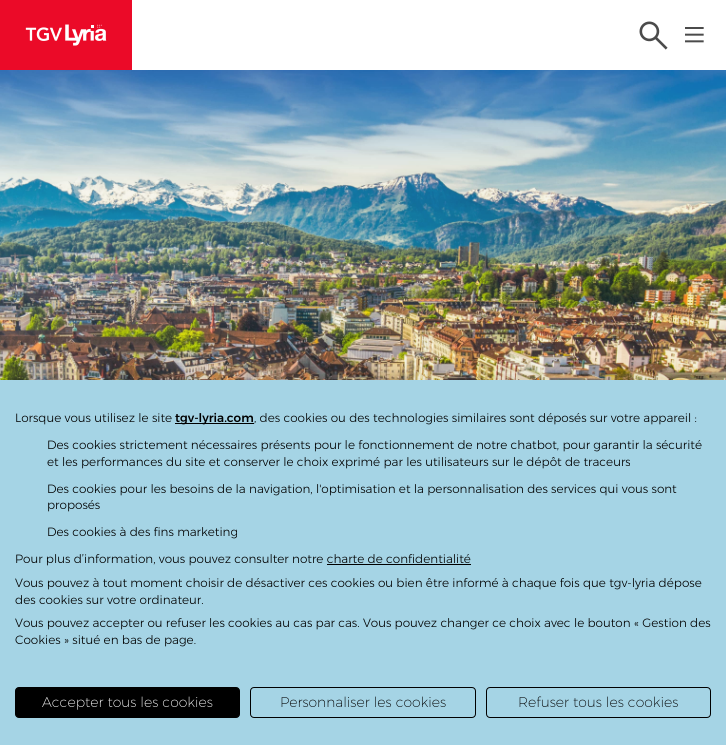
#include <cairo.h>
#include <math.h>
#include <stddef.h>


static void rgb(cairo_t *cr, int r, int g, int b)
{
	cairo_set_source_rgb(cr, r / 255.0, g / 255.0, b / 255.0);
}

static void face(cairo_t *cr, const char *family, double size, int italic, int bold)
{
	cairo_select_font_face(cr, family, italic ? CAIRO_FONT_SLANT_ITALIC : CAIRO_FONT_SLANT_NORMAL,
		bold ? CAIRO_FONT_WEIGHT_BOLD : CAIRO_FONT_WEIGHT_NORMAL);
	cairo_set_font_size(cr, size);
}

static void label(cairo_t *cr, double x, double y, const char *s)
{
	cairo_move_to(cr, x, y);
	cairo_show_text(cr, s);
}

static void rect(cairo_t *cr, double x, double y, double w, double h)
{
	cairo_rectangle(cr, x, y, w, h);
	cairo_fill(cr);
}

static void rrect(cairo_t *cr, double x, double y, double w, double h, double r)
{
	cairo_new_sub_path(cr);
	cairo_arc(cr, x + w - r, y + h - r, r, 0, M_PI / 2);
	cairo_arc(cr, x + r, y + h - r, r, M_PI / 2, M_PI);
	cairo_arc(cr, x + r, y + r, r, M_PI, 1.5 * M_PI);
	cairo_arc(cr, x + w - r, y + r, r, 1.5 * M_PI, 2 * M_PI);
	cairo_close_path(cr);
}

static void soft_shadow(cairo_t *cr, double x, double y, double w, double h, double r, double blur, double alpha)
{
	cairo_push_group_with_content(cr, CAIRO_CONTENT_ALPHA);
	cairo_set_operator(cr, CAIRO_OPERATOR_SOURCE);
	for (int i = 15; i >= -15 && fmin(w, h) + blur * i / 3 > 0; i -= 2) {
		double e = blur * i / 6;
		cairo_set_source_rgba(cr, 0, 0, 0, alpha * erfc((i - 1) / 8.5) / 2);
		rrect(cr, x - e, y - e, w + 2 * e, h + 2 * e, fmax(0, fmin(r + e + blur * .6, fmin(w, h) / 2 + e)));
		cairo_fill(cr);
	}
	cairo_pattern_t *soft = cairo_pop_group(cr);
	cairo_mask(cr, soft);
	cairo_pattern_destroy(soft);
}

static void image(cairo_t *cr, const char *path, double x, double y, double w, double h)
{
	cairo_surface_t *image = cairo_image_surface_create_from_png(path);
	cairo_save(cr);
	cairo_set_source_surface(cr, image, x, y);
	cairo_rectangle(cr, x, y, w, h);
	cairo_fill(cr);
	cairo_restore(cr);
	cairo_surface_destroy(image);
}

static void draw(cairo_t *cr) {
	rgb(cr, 255, 255, 255);
	cairo_paint(cr);
	rgb(cr, 235, 10, 40);
	rect(cr, 0, 0, 132, 70);
	image(cr, "image0.png", 25, 24, 82, 22);
	image(cr, "image1.png", 639, 21, 29, 29);
	image(cr, "image2.png", 685, 27, 19, 16);
	image(cr, "image3.png", 0, 70, 726, 310);
	rgb(cr, 0, 0, 0);
	soft_shadow(cr, 0, 380, 726, 365, 0, 12, 0.1);
	rgb(cr, 165, 212, 229);
	rect(cr, 0, 380, 726, 365);
	face(cr, "Montserrat Light", 12, 0, 0);
	rgb(cr, 0, 0, 0);
	label(cr, 15, 422, "Lorsque vous utilisez le site");
	rect(cr, 175, 423, 79, 1);
	face(cr, "Montserrat Medium", 12, 0, 0);
	label(cr, 175, 422, "tgv-lyria.com");
	face(cr, "Montserrat Light", 12, 0, 0);
	label(cr, 254, 422, ", des cookies ou des technologies similaires sont déposés sur votre appareil :");
	label(cr, 47, 449, "Des cookies strictement nécessaires présents pour le fonctionnement de notre chatbot, pour garantir la sécurité");
	label(cr, 47, 466, "et les performances du site et conserver le choix exprimé par les utilisateurs sur le dépôt de traceurs");
	label(cr, 47, 493, "Des cookies pour les besoins de la navigation, l'optimisation et la personnalisation des services qui vous sont");
	label(cr, 47, 509, "proposés");
	label(cr, 47, 536, "Des cookies à des fins marketing");
	label(cr, 15, 563, "Pour plus d’information, vous pouvez consulter notre charte de confidentialité");
	rect(cr, 327, 564, 144, 1);
	label(cr, 15, 587, "Vous pouvez à tout moment choisir de désactiver ces cookies ou bien être informé à chaque fois que tgv-lyria dépose");
	label(cr, 15, 604, "des cookies sur votre ordinateur.");
	label(cr, 15, 627, "Vous pouvez accepter ou refuser les cookies au cas par cas. Vous pouvez changer ce choix avec le bouton « Gestion des");
	label(cr, 15, 644, "Cookies » situé en bas de page.");
	rrect(cr, 15.5, 687.5, 224, 30, 3.5);
	cairo_fill_preserve(cr);
	cairo_set_line_width(cr, 1);
	cairo_stroke(cr);
	face(cr, "Montserrat ExtraLight", 14, 0, 0);
	rgb(cr, 255, 255, 255);
	label(cr, 42, 707, "Accepter tous les cookies");
	rrect(cr, 250.5, 687.5, 225, 30, 3.5);
	rgb(cr, 0, 0, 0);
	cairo_stroke(cr);
	label(cr, 280, 707, "Personnaliser les cookies");
	rrect(cr, 486.5, 687.5, 224, 30, 3.5);
	cairo_stroke(cr);
	label(cr, 518, 707, "Refuser tous les cookies");
}

int main(void) {
	cairo_surface_t *surface = cairo_image_surface_create(CAIRO_FORMAT_RGB24, 726, 745);
	cairo_t *cr = cairo_create(surface);
	cairo_font_options_t *options = cairo_font_options_create();
	cairo_font_options_set_hint_metrics(options, CAIRO_HINT_METRICS_OFF);
	cairo_font_options_set_hint_style(options, CAIRO_HINT_STYLE_NONE);
	cairo_set_font_options(cr, options);
	cairo_set_miter_limit(cr, 4);
	draw(cr);
	cairo_surface_write_to_png(surface, "render.png");
	cairo_font_options_destroy(options);
	cairo_destroy(cr);
	cairo_surface_destroy(surface);
	return 0;
}
